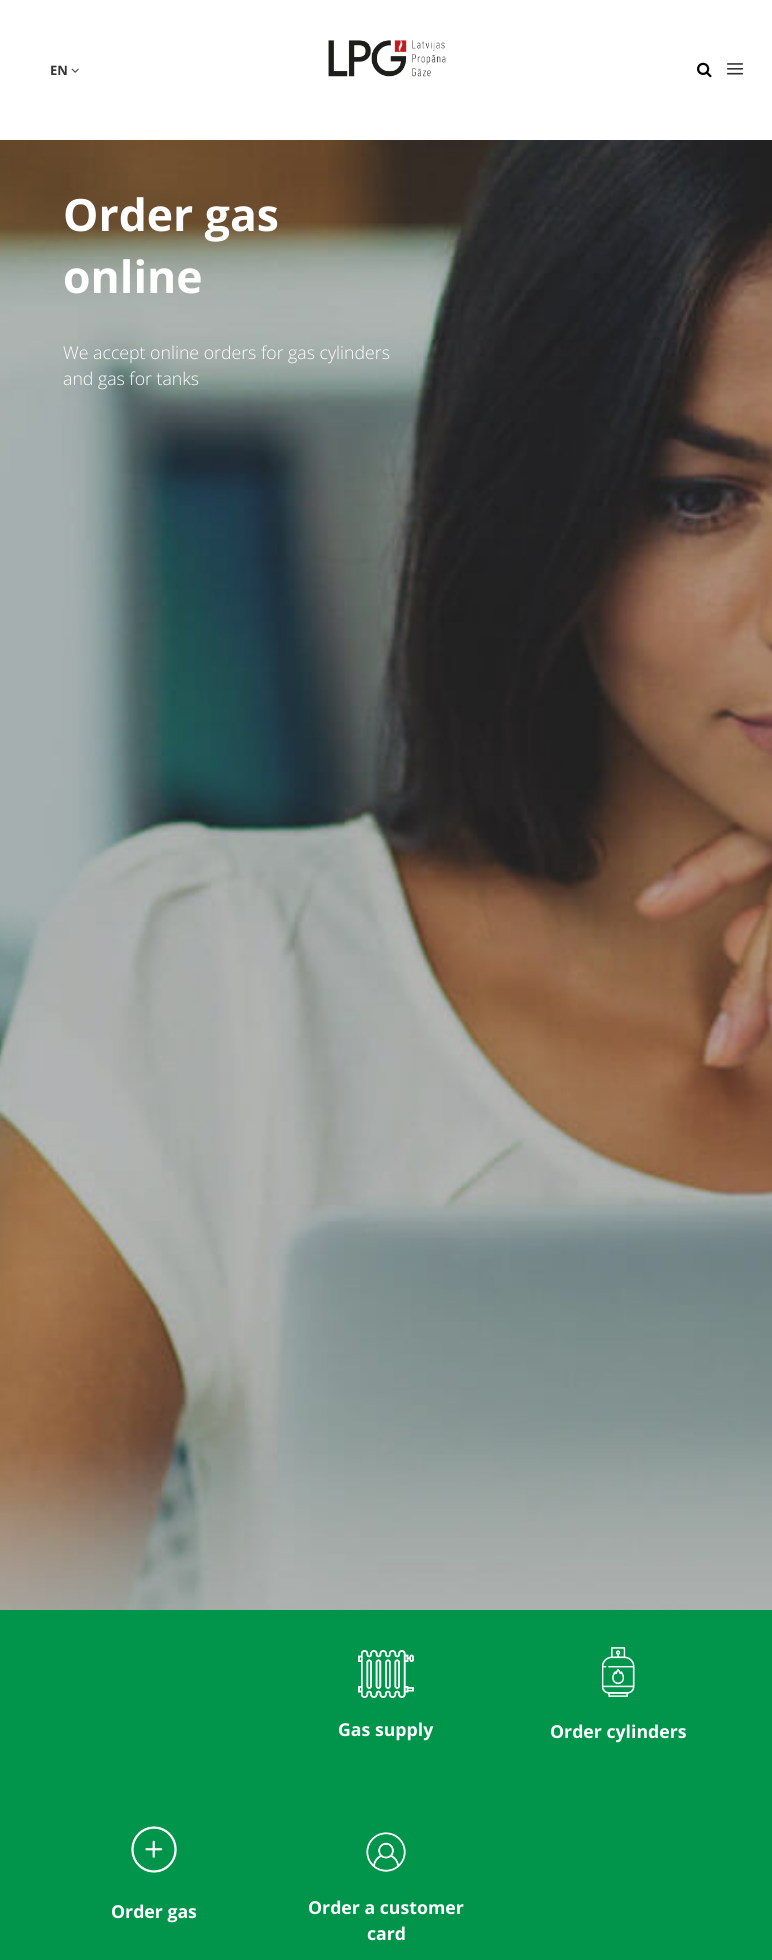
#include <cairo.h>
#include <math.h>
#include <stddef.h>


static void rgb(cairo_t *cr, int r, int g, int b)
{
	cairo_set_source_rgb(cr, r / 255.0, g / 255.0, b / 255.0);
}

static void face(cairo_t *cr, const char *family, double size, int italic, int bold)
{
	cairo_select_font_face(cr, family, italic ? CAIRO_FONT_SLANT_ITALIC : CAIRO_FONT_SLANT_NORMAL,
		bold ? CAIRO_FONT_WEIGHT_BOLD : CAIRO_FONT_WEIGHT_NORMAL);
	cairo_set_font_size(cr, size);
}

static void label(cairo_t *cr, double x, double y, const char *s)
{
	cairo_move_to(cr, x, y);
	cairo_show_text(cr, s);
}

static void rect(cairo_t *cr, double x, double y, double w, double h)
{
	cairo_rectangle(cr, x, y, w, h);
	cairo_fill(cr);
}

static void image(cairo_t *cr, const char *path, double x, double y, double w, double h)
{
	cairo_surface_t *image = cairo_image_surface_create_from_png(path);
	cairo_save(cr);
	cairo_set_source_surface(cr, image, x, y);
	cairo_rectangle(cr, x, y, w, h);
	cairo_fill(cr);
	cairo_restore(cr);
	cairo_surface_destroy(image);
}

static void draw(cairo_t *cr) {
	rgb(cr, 255, 255, 255);
	cairo_paint(cr);
	face(cr, "Open Sans", 13, 0, 1);
	rgb(cr, 51, 51, 51);
	label(cr, 50, 75, "EN");
	image(cr, "image0.png", 71, 68, 8, 5);
	image(cr, "image1.png", 328, 40, 118, 37);
	image(cr, "image2.png", 697, 62, 15, 16);
	image(cr, "image3.png", 726, 63, 18, 12);
	image(cr, "image4.png", 0, 140, 772, 1470);
	face(cr, "Open Sans", 44.5, 0, 1);
	rgb(cr, 255, 255, 255);
	label(cr, 63, 231, "Order gas");
	label(cr, 63, 293, "online");
	face(cr, "Open Sans Light", 17.7, 0, 0);
	label(cr, 63, 359, "We accept online orders for gas cylinders");
	label(cr, 63, 385, "and gas for tanks");
	rgb(cr, 0, 149, 74);
	rect(cr, 0, 1610, 772, 350);
	image(cr, "image5.png", 358, 1650, 56, 48);
	face(cr, "Open Sans", 17.7, 0, 1);
	rgb(cr, 255, 255, 255);
	label(cr, 338, 1736, "Gas supply");
	image(cr, "image6.png", 602, 1647, 33, 50);
	label(cr, 550, 1738, "Order cylinders");
	image(cr, "image7.png", 131, 1826, 46, 47);
	label(cr, 111, 1918, "Order gas");
	image(cr, "image8.png", 366, 1832, 40, 40);
	label(cr, 308, 1914, "Order a customer");
	label(cr, 367, 1940, "card");
}

int main(void) {
	cairo_surface_t *surface = cairo_image_surface_create(CAIRO_FORMAT_RGB24, 772, 1960);
	cairo_t *cr = cairo_create(surface);
	cairo_font_options_t *options = cairo_font_options_create();
	cairo_font_options_set_hint_metrics(options, CAIRO_HINT_METRICS_OFF);
	cairo_font_options_set_hint_style(options, CAIRO_HINT_STYLE_NONE);
	cairo_set_font_options(cr, options);
	cairo_set_miter_limit(cr, 4);
	draw(cr);
	cairo_surface_write_to_png(surface, "render.png");
	cairo_font_options_destroy(options);
	cairo_destroy(cr);
	cairo_surface_destroy(surface);
	return 0;
}
